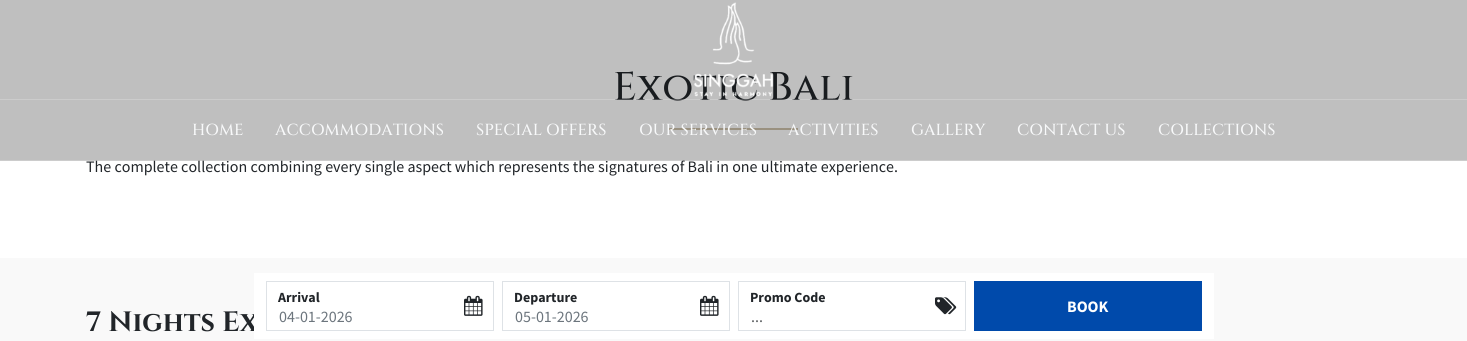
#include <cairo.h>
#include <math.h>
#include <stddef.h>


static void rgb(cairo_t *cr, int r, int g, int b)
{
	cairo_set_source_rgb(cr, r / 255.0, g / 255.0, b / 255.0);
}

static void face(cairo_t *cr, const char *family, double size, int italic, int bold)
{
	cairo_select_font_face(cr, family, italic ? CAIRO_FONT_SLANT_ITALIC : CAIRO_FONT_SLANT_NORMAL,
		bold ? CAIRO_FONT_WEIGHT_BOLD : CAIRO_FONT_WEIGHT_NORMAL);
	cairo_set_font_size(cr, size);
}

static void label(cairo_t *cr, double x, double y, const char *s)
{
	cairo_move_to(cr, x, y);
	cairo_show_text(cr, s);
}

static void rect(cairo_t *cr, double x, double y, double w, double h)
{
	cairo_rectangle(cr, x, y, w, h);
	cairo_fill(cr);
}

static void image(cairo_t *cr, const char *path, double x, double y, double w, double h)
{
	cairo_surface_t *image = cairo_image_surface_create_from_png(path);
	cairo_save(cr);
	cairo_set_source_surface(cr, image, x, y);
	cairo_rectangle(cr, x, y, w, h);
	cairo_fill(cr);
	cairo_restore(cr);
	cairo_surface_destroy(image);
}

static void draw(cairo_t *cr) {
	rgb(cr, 255, 255, 255);
	cairo_paint(cr);
	face(cr, "Cinzel Medium", 40, 0, 0);
	rgb(cr, 33, 37, 41);
	label(cr, 613, 100, "Exotic Bali");
	rgb(cr, 206, 194, 171);
	rect(cr, 669, 128, 129, 2);
	face(cr, "Source Sans Pro", 16, 0, 0);
	rgb(cr, 33, 37, 41);
	label(cr, 86, 172, "The complete collection combining every single aspect which represents the signatures of Bali in one ultimate experience.");
	rgb(cr, 249, 249, 249);
	rect(cr, 0, 258, 1467, 83);
	face(cr, "Cinzel", 28, 0, 1);
	rgb(cr, 33, 37, 41);
	label(cr, 86, 331, "7 Nights Ex");
	cairo_set_source_rgba(cr, 0, 0, 0, 0.25);
	rect(cr, 0, 0, 1467, 100);
	cairo_set_source_rgba(cr, 1, 1, 1, 0.2);
	rect(cr, 0, 99, 1467, 1);
	image(cr, "image0.png", 694, 2, 80, 95);
	cairo_set_source_rgba(cr, 0, 0, 0, 0.25);
	rect(cr, 0, 100, 1467, 61);
	cairo_set_source_rgba(cr, 1, 1, 1, 0.2);
	rect(cr, 0, 160, 1467, 1);
	face(cr, "Cinzel Medium", 16, 0, 0);
	rgb(cr, 248, 249, 250);
	label(cr, 192, 135, "HOME");
	label(cr, 275, 135, "ACCOMMODATIONS");
	label(cr, 476, 135, "SPECIAL OFFERS");
	label(cr, 639, 135, "OUR SERVICES");
	label(cr, 788, 135, "ACTIVITIES");
	label(cr, 911, 135, "GALLERY");
	label(cr, 1017, 135, "CONTACT US");
	label(cr, 1158, 135, "COLLECTIONS");
	rgb(cr, 255, 255, 255);
	rect(cr, 254, 273, 960, 66);
	cairo_rectangle(cr, 266.5, 281.5, 227, 49);
	rgb(cr, 222, 226, 230);
	cairo_set_line_width(cr, 1);
	cairo_stroke(cr);
	face(cr, "Source Sans Pro", 14, 0, 1);
	rgb(cr, 33, 37, 41);
	label(cr, 278, 302, "Arrival");
	image(cr, "image1.png", 464, 295, 19, 21);
	face(cr, "Source Sans Pro", 16, 0, 0);
	rgb(cr, 108, 117, 125);
	label(cr, 279, 322, "04-01-2026");
	cairo_rectangle(cr, 502.5, 281.5, 227, 49);
	rgb(cr, 222, 226, 230);
	cairo_stroke(cr);
	face(cr, "Source Sans Pro", 14, 0, 1);
	rgb(cr, 33, 37, 41);
	label(cr, 514, 302, "Departure");
	image(cr, "image1.png", 700, 295, 19, 21);
	face(cr, "Source Sans Pro", 16, 0, 0);
	rgb(cr, 108, 117, 125);
	label(cr, 515, 322, "05-01-2026");
	cairo_rectangle(cr, 738.5, 281.5, 227, 49);
	rgb(cr, 222, 226, 230);
	cairo_stroke(cr);
	face(cr, "Source Sans Pro", 14, 0, 1);
	rgb(cr, 33, 37, 41);
	label(cr, 750, 302, "Promo Code");
	image(cr, "image2.png", 935, 297, 22, 18);
	face(cr, "Source Sans Pro", 16, 0, 0);
	rgb(cr, 89, 92, 95);
	label(cr, 751, 322, "...");
	rgb(cr, 0, 74, 171);
	rect(cr, 974, 281, 228, 50);
	face(cr, "Source Sans Pro", 16, 0, 1);
	rgb(cr, 255, 255, 255);
	label(cr, 1067, 312, "BOOK");
}

int main(void) {
	cairo_surface_t *surface = cairo_image_surface_create(CAIRO_FORMAT_RGB24, 1467, 341);
	cairo_t *cr = cairo_create(surface);
	cairo_font_options_t *options = cairo_font_options_create();
	cairo_font_options_set_hint_metrics(options, CAIRO_HINT_METRICS_OFF);
	cairo_font_options_set_hint_style(options, CAIRO_HINT_STYLE_NONE);
	cairo_set_font_options(cr, options);
	cairo_set_miter_limit(cr, 4);
	draw(cr);
	cairo_surface_write_to_png(surface, "render.png");
	cairo_font_options_destroy(options);
	cairo_destroy(cr);
	cairo_surface_destroy(surface);
	return 0;
}
